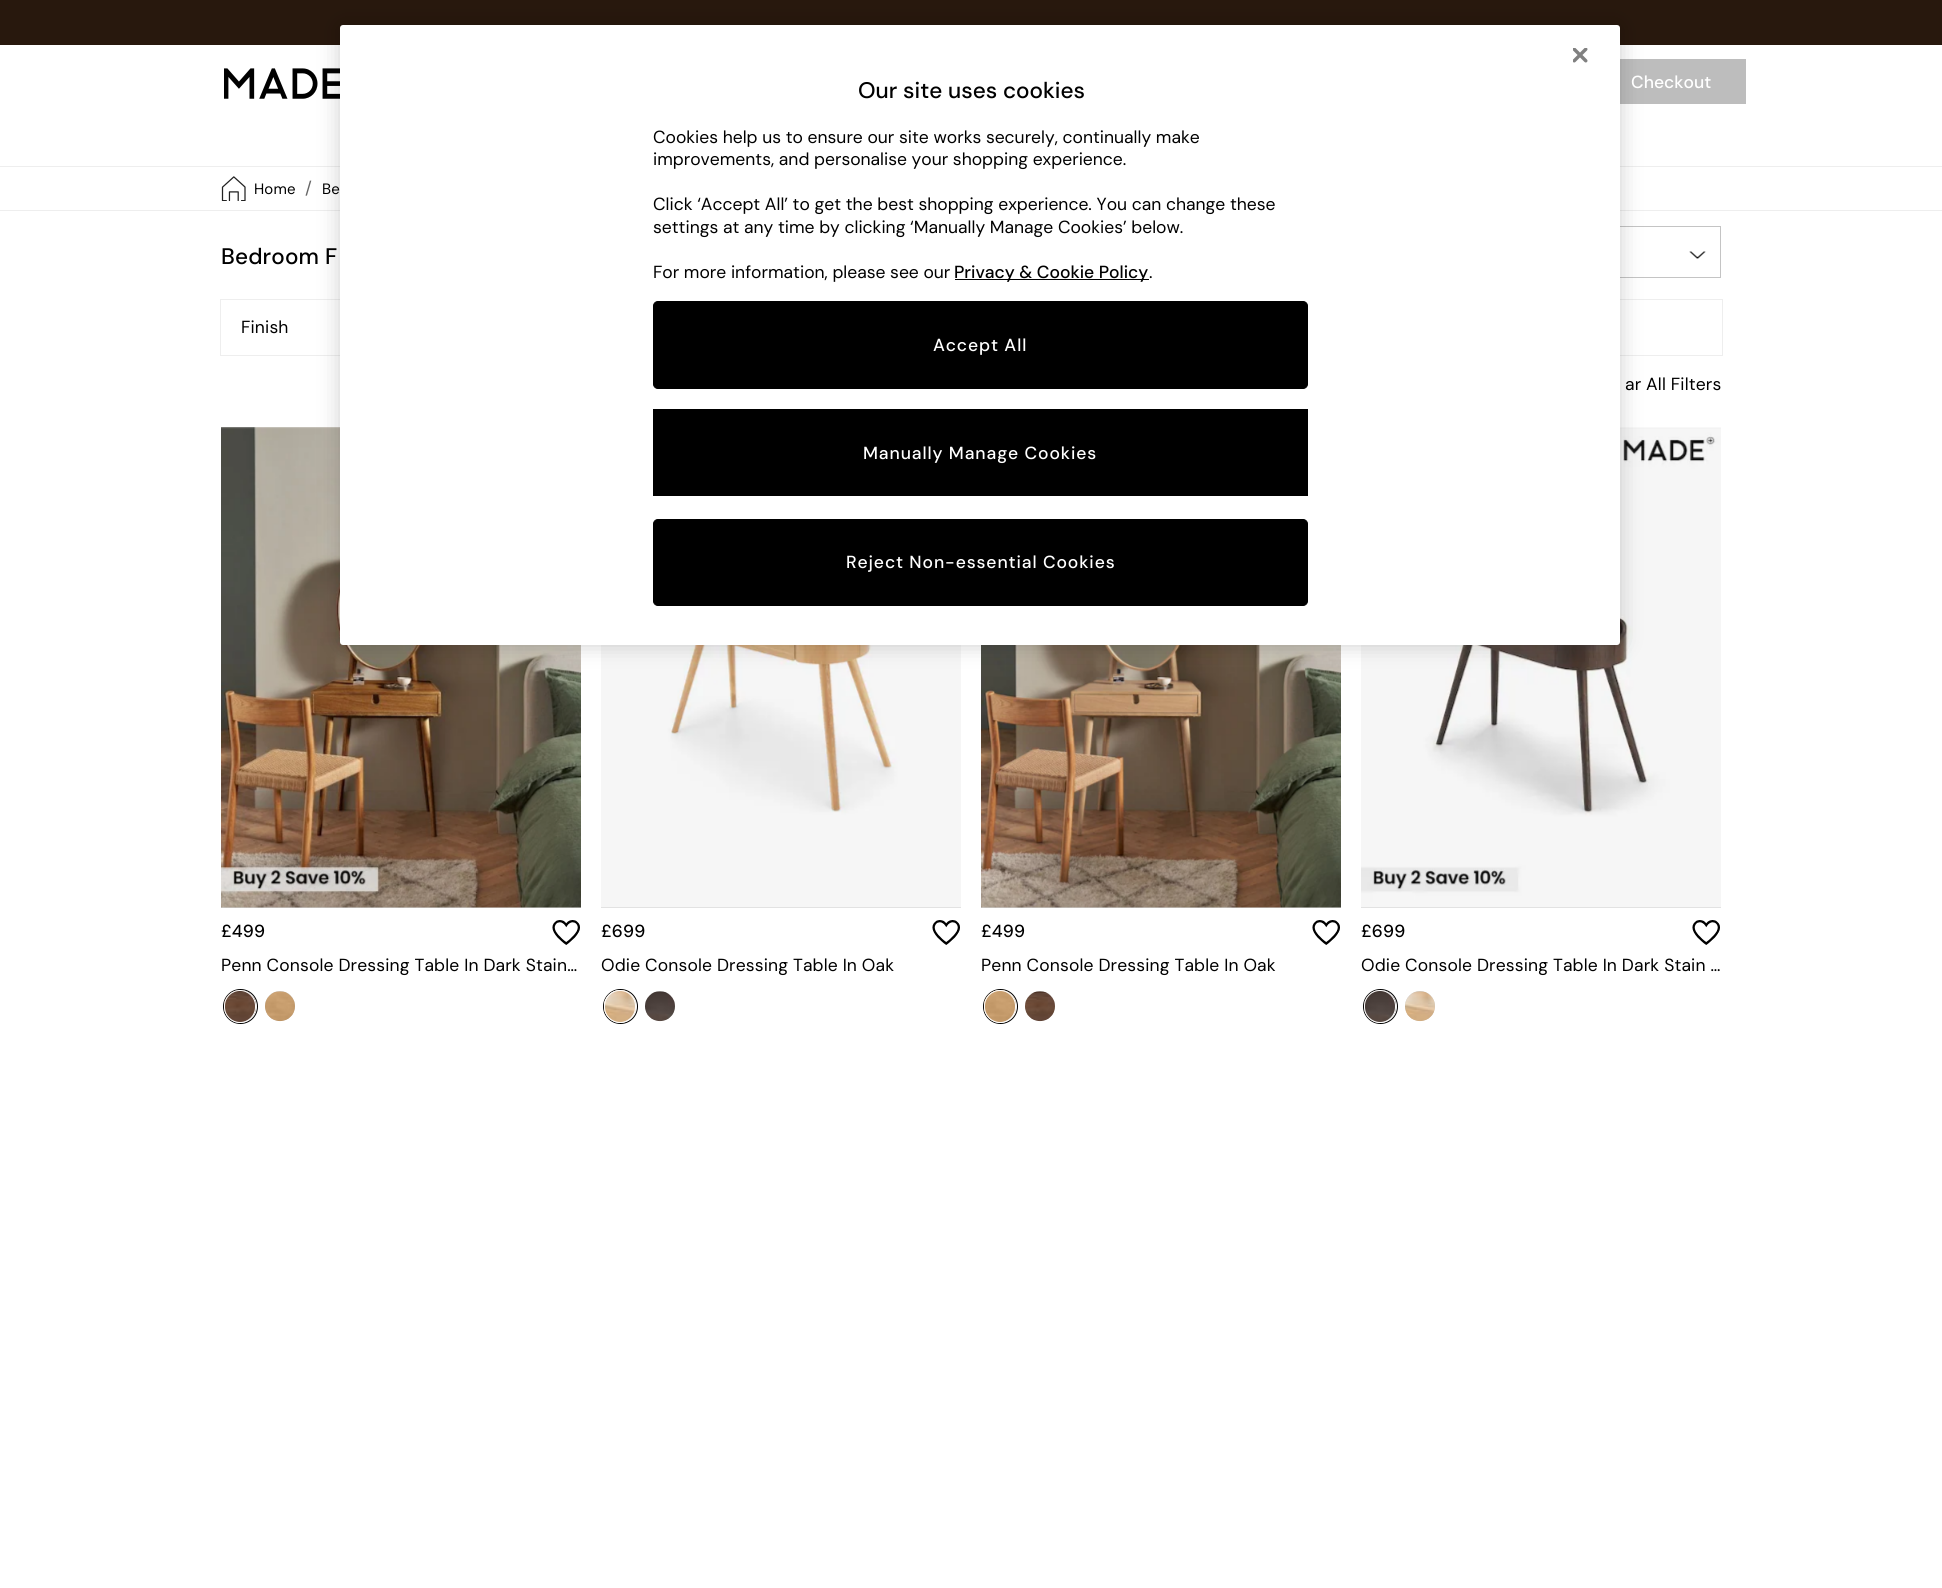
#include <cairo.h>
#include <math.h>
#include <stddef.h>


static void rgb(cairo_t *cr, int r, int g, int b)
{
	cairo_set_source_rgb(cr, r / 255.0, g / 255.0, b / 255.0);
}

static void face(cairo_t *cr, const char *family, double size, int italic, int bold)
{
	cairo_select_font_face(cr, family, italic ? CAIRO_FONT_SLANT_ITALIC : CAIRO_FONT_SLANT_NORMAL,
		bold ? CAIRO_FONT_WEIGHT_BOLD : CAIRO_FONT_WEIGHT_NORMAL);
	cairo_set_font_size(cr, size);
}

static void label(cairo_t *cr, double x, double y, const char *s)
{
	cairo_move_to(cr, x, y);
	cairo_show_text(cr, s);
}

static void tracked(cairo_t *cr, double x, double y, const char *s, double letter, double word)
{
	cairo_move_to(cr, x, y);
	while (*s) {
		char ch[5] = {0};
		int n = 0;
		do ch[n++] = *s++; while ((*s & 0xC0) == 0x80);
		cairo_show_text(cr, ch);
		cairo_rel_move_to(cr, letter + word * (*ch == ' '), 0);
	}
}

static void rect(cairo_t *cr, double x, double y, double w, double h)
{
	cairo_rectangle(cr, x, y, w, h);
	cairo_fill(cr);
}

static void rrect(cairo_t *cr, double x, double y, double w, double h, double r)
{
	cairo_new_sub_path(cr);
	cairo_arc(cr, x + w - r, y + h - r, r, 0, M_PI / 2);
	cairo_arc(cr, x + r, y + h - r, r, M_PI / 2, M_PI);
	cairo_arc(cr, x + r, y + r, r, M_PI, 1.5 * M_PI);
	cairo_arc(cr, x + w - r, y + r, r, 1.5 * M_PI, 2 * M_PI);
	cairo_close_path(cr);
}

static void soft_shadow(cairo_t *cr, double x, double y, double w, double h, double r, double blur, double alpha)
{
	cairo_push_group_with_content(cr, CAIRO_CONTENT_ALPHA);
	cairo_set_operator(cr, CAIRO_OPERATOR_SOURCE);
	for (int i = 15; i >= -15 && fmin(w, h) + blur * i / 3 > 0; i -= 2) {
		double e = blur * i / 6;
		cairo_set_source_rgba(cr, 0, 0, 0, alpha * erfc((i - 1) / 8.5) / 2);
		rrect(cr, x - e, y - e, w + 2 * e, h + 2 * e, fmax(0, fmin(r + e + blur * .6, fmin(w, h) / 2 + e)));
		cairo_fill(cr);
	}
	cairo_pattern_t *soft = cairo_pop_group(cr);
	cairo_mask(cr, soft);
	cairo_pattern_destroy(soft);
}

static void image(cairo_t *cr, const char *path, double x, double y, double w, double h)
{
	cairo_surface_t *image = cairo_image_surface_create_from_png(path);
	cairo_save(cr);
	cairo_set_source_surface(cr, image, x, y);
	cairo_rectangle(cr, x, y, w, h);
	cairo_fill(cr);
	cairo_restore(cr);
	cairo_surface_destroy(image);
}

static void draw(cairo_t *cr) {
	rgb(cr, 255, 255, 255);
	cairo_paint(cr);
	rgb(cr, 40, 24, 13);
	rect(cr, 0, 0, 1942, 45);
	image(cr, "image1.png", 224, 68, 116, 31);
	rgb(cr, 189, 189, 189);
	rect(cr, 1620, 59, 126, 45);
	rgb(cr, 238, 238, 238);
	rect(cr, 0, 166, 1942, 1);
	rect(cr, 0, 210, 1942, 1);
	image(cr, "image3.png", 1689, 251, 17, 8);
	cairo_rectangle(cr, 1451.5, 226.5, 269, 51);
	rgb(cr, 196, 196, 196);
	cairo_set_line_width(cr, 1);
	cairo_stroke(cr);
	cairo_rectangle(cr, 220.5, 299.5, 1502, 56);
	rgb(cr, 238, 238, 238);
	cairo_stroke(cr);
	rgb(cr, 209, 209, 209);
	rect(cr, 221, 428, 360, 480);
	image(cr, "image4.png", 221, 427, 360, 481);
	rect(cr, 601, 907, 360, 1);
	image(cr, "image8.png", 601, 645, 360, 263);
	rect(cr, 981, 907, 360, 1);
	image(cr, "image11.png", 981, 645, 360, 263);
	rect(cr, 1361, 428, 360, 480);
	image(cr, "image14.png", 1361, 427, 360, 481);
	rgb(cr, 0, 0, 0);
	soft_shadow(cr, 340, 25, 1280, 620, 3, 11, 0.2);
	rgb(cr, 255, 255, 255);
	rrect(cr, 340, 25, 1280, 620, 3);
	cairo_fill(cr);
	image(cr, "image0.png", 1573, 48, 15, 15);
	face(cr, "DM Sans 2 Medium", 22.5, 0, 0);
	rgb(cr, 0, 0, 0);
	label(cr, 858, 98, "Our site uses cookies");
	face(cr, "DM Sans 2", 17.5, 0, 0);
	label(cr, 653, 143, "Cookies help us to ensure our site works securely, continually make");
	label(cr, 653, 165, "improvements, and personalise your shopping experience.");
	label(cr, 653, 210, "Click ‘Accept All’ to get the best shopping experience. You can change these");
	label(cr, 653, 233, "settings at any time by clicking ‘Manually Manage Cookies’ below.");
	label(cr, 653, 278, "For more information, please see our");
	rect(cr, 955, 279, 194, 1);
	face(cr, "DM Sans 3 Medium", 17.5, 0, 0);
	label(cr, 954, 278, "Privacy & Cookie Policy");
	face(cr, "DM Sans 2", 17.5, 0, 0);
	label(cr, 1149, 278, ".");
	rrect(cr, 653.5, 301.5, 654, 87, 4.5);
	cairo_fill_preserve(cr);
	cairo_stroke(cr);
	face(cr, "DM Sans 3 Medium", 17.5, 0, 0);
	rgb(cr, 255, 255, 255);
	tracked(cr, 933, 351, "Accept All", 0.9, 0);
	rgb(cr, 0, 0, 0);
	rrect(cr, 653.5, 519.5, 654, 86, 4.5);
	cairo_fill_preserve(cr);
	cairo_stroke(cr);
	rgb(cr, 255, 255, 255);
	tracked(cr, 846, 568, "Reject Non-essential Cookies", 0.9, 0);
	rgb(cr, 0, 0, 0);
	rect(cr, 653, 409, 655, 87);
	rgb(cr, 255, 255, 255);
	tracked(cr, 863, 459, "Manually Manage Cookies", 0.9, 0);
	face(cr, "DM Sans Medium", 17.5, 0, 0);
	label(cr, 1631, 88, "Checkout");
	image(cr, "image2.png", 221, 176, 25, 25);
	face(cr, "DM Sans", 15, 0, 0);
	rgb(cr, 0, 0, 0);
	tracked(cr, 254, 194, "Home", 0.15, 0);
	face(cr, "DM Sans", 17.5, 0, 0);
	rgb(cr, 102, 102, 102);
	tracked(cr, 305, 194, "/", 0.15, 0);
	face(cr, "DM Sans", 15, 0, 0);
	rgb(cr, 0, 0, 0);
	tracked(cr, 322, 194, "Be", 0.15, 0);
	face(cr, "DM Sans Medium", 22.5, 0, 0);
	tracked(cr, 221, 264, "Bedroom F", 0.15, 0);
	face(cr, "DM Sans", 17.5, 0, 0);
	tracked(cr, 241, 333, "Finish", 0.15, 0);
	tracked(cr, 1625, 390, "ar All Filters", 0.15, 0);
	image(cr, "image5.png", 552, 920, 28, 25);
	face(cr, "DM Sans Medium", 17.5, 0, 0);
	tracked(cr, 221, 937, "£499", 0.15, 0);
	face(cr, "DM Sans", 17.5, 0, 0);
	tracked(cr, 221, 971, "Penn Console Dressing Table In Dark Stain…", 0.15, 0);
	cairo_new_path(cr);
	cairo_arc(cr, 240.5, 1006.5, 17, 0, 2 * M_PI);
	cairo_stroke(cr);
	image(cr, "image6.png", 223, 990, 34, 33);
	rrect(cr, 224.5, 990.5, 31, 32, 15.5);
	rgb(cr, 255, 255, 255);
	cairo_stroke(cr);
	rgb(cr, 209, 209, 209);
	cairo_arc(cr, 280, 1006, 15, 0, 2 * M_PI);
	cairo_fill(cr);
	image(cr, "image7.png", 265, 991, 30, 31);
	face(cr, "DM Sans Medium", 17.5, 0, 0);
	rgb(cr, 0, 0, 0);
	tracked(cr, 601, 937, "£699", 0.15, 0);
	face(cr, "DM Sans", 17.5, 0, 0);
	tracked(cr, 601, 971, "Odie Console Dressing Table In Oak", 0.15, 0);
	image(cr, "image5.png", 932, 920, 28, 25);
	cairo_arc(cr, 620.5, 1006.5, 17, 0, 2 * M_PI);
	cairo_stroke(cr);
	image(cr, "image9.png", 603, 990, 34, 33);
	rrect(cr, 604.5, 990.5, 31, 32, 15.5);
	rgb(cr, 255, 255, 255);
	cairo_stroke(cr);
	rgb(cr, 209, 209, 209);
	cairo_arc(cr, 660, 1006, 15, 0, 2 * M_PI);
	cairo_fill(cr);
	image(cr, "image10.png", 645, 991, 30, 31);
	face(cr, "DM Sans Medium", 17.5, 0, 0);
	rgb(cr, 0, 0, 0);
	tracked(cr, 981, 937, "£499", 0.15, 0);
	face(cr, "DM Sans", 17.5, 0, 0);
	tracked(cr, 981, 971, "Penn Console Dressing Table In Oak", 0.15, 0);
	image(cr, "image5.png", 1312, 920, 28, 25);
	cairo_arc(cr, 1000.5, 1006.5, 17, 0, 2 * M_PI);
	cairo_stroke(cr);
	image(cr, "image12.png", 983, 990, 34, 33);
	rrect(cr, 984.5, 990.5, 31, 32, 15.5);
	rgb(cr, 255, 255, 255);
	cairo_stroke(cr);
	rgb(cr, 209, 209, 209);
	cairo_arc(cr, 1040, 1006, 15, 0, 2 * M_PI);
	cairo_fill(cr);
	image(cr, "image13.png", 1025, 991, 30, 31);
	image(cr, "image5.png", 1692, 920, 28, 25);
	face(cr, "DM Sans Medium", 17.5, 0, 0);
	rgb(cr, 0, 0, 0);
	tracked(cr, 1361, 937, "£699", 0.15, 0);
	face(cr, "DM Sans", 17.5, 0, 0);
	tracked(cr, 1361, 971, "Odie Console Dressing Table In Dark Stain …", 0.15, 0);
	cairo_new_path(cr);
	cairo_arc(cr, 1380.5, 1006.5, 17, 0, 2 * M_PI);
	cairo_stroke(cr);
	image(cr, "image15.png", 1363, 990, 34, 33);
	rrect(cr, 1364.5, 990.5, 31, 32, 15.5);
	rgb(cr, 255, 255, 255);
	cairo_stroke(cr);
	rgb(cr, 209, 209, 209);
	cairo_arc(cr, 1420, 1006, 15, 0, 2 * M_PI);
	cairo_fill(cr);
	image(cr, "image16.png", 1405, 991, 30, 31);
}

int main(void) {
	cairo_surface_t *surface = cairo_image_surface_create(CAIRO_FORMAT_RGB24, 1942, 1588);
	cairo_t *cr = cairo_create(surface);
	cairo_font_options_t *options = cairo_font_options_create();
	cairo_font_options_set_hint_metrics(options, CAIRO_HINT_METRICS_OFF);
	cairo_font_options_set_hint_style(options, CAIRO_HINT_STYLE_NONE);
	cairo_set_font_options(cr, options);
	cairo_set_miter_limit(cr, 4);
	draw(cr);
	cairo_surface_write_to_png(surface, "render.png");
	cairo_font_options_destroy(options);
	cairo_destroy(cr);
	cairo_surface_destroy(surface);
	return 0;
}
